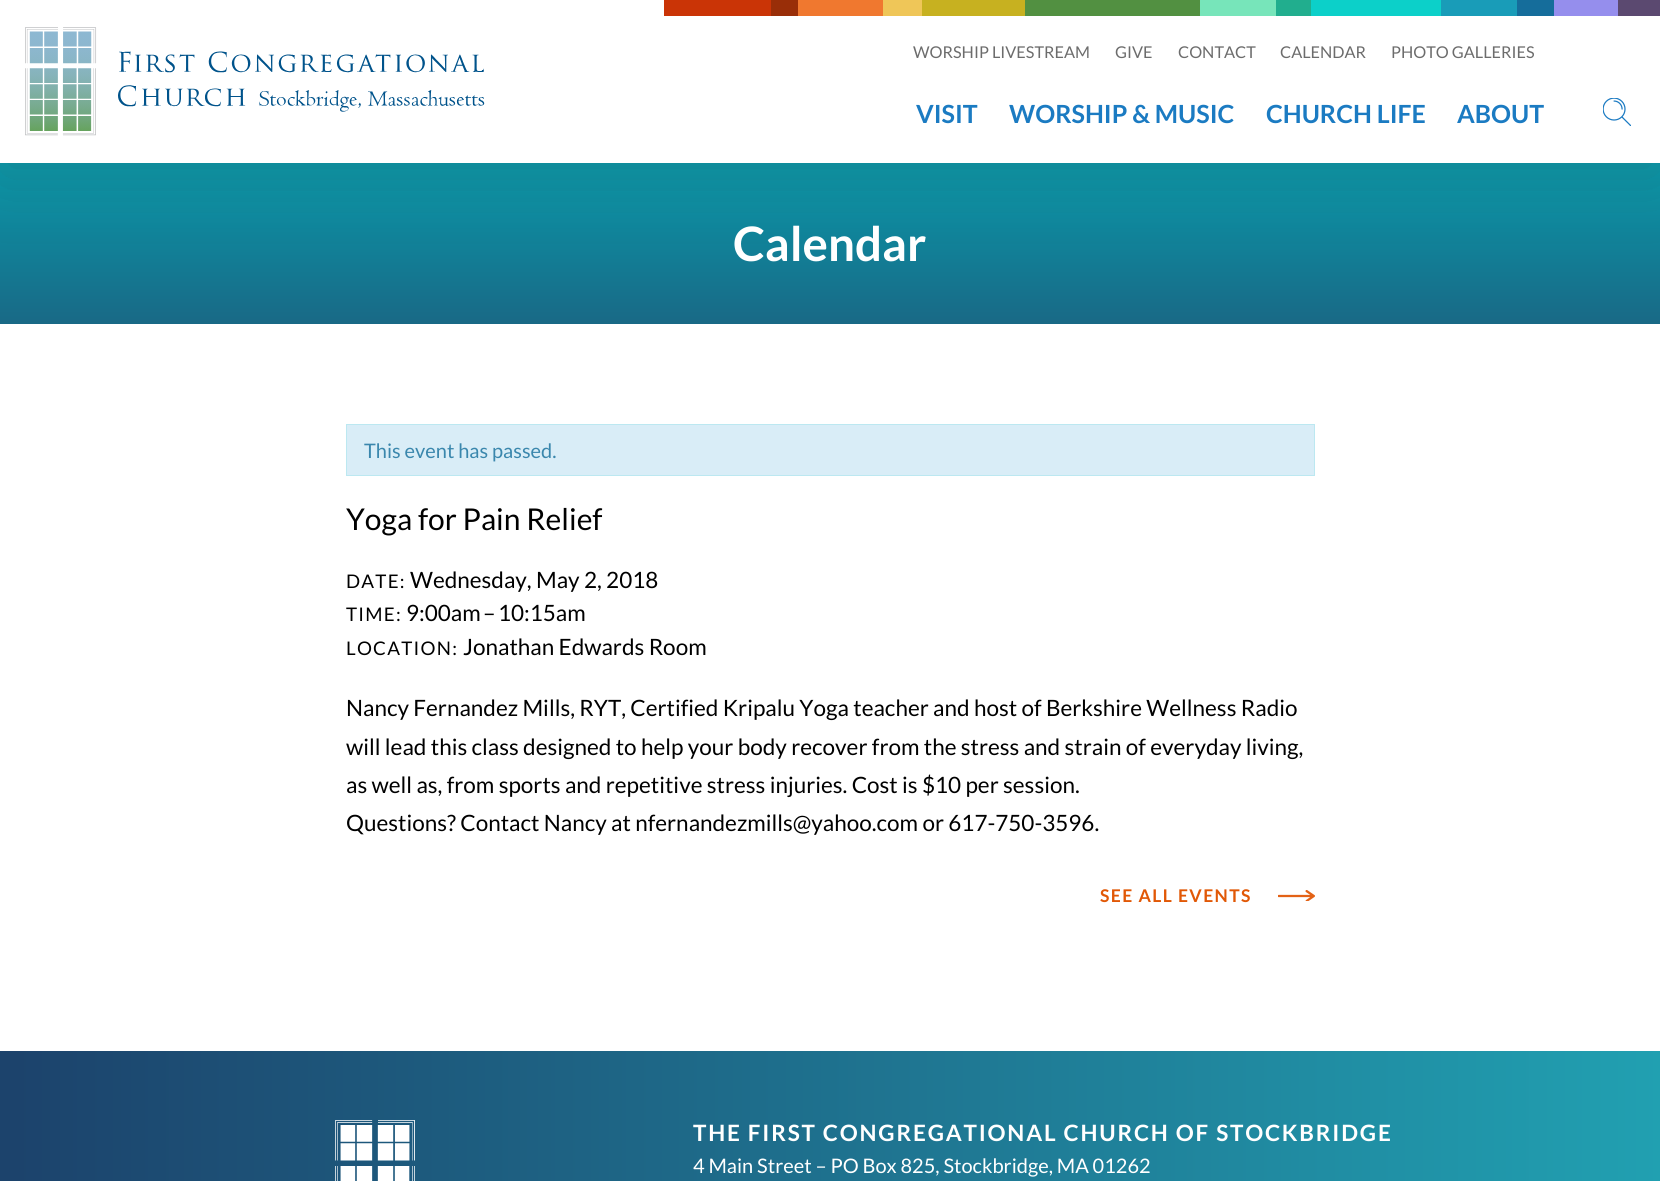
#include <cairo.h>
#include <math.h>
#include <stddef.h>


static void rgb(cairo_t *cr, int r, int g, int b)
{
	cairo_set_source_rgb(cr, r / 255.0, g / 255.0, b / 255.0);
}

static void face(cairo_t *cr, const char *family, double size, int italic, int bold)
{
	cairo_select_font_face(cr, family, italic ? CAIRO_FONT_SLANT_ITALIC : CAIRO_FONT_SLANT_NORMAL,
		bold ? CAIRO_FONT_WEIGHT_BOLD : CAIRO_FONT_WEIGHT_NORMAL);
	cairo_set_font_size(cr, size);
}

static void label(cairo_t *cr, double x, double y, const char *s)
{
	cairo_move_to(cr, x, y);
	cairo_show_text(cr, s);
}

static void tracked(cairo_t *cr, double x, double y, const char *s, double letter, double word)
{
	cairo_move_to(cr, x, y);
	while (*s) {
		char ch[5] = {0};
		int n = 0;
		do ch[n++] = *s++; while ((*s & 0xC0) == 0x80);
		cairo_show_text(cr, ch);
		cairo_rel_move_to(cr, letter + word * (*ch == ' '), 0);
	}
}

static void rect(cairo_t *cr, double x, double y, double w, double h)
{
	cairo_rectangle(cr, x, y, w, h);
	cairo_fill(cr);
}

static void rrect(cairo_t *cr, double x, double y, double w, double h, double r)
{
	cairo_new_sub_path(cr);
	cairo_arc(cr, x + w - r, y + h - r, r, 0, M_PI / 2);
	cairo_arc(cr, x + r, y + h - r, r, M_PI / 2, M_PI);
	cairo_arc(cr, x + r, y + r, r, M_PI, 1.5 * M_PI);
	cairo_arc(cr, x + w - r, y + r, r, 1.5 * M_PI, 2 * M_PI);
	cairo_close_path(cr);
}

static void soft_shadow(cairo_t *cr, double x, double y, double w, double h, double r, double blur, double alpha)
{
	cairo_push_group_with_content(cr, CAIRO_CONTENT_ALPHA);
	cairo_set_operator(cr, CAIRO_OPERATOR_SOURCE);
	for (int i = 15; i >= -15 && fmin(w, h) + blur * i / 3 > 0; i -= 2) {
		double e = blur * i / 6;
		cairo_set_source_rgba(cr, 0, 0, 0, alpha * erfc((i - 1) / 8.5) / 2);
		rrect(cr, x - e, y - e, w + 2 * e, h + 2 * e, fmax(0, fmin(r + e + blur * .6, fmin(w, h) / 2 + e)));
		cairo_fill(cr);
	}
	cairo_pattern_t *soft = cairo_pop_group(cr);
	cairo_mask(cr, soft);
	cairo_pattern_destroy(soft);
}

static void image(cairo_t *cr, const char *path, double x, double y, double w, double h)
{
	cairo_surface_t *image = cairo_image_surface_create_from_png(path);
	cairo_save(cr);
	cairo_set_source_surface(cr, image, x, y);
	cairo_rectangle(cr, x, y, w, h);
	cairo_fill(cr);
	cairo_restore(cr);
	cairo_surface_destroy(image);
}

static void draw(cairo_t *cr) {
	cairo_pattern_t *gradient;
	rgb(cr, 255, 255, 255);
	cairo_paint(cr);
	gradient = cairo_pattern_create_linear(830, 324, 830, 163);
	cairo_pattern_add_color_stop_rgba(gradient, 0, 0.098, 0.412, 0.525, 1);
	cairo_pattern_add_color_stop_rgba(gradient, 1, 0.035, 0.6, 0.667, 1);
	cairo_set_source(cr, gradient);
	cairo_pattern_destroy(gradient);
	rect(cr, 0, 163, 1660, 161);
	rgb(cr, 56, 56, 56);
	soft_shadow(cr, 0, 13, 1660, 162, 0, 32, 0.21);
	rgb(cr, 255, 255, 255);
	rect(cr, 0, 0, 1660, 163);
	rgb(cr, 202, 52, 6);
	rect(cr, 664, 0, 107, 16);
	rgb(cr, 153, 46, 8);
	rect(cr, 771, 0, 27, 16);
	rgb(cr, 240, 120, 47);
	rect(cr, 798, 0, 85, 16);
	rgb(cr, 239, 198, 88);
	rect(cr, 883, 0, 39, 16);
	rgb(cr, 199, 177, 32);
	rect(cr, 922, 0, 103, 16);
	rgb(cr, 82, 144, 65);
	rect(cr, 1025, 0, 175, 16);
	rgb(cr, 119, 229, 186);
	rect(cr, 1200, 0, 76, 16);
	rgb(cr, 33, 174, 142);
	rect(cr, 1276, 0, 35, 16);
	rgb(cr, 12, 208, 201);
	rect(cr, 1311, 0, 130, 16);
	rgb(cr, 25, 156, 184);
	rect(cr, 1441, 0, 76, 16);
	rgb(cr, 21, 109, 155);
	rect(cr, 1517, 0, 37, 16);
	rgb(cr, 149, 142, 237);
	rect(cr, 1554, 0, 64, 16);
	rgb(cr, 91, 73, 112);
	rect(cr, 1618, 0, 42, 16);
	face(cr, "Lato", 16.25, 0, 0);
	rgb(cr, 108, 108, 108);
	label(cr, 913, 58, "WORSHIP LIVESTREAM");
	label(cr, 1115, 58, "GIVE");
	label(cr, 1178, 58, "CONTACT");
	label(cr, 1280, 58, "CALENDAR");
	label(cr, 1391, 58, "PHOTO GALLERIES");
	image(cr, "image0.png", 1603, 98, 28, 28);
	image(cr, "image1.png", 25, 27, 460, 109);
	face(cr, "Lato", 25, 0, 1);
	rgb(cr, 27, 123, 194);
	label(cr, 916, 123, "VISIT");
	label(cr, 1009, 123, "WORSHIP & MUSIC");
	label(cr, 1266, 123, "CHURCH LIFE");
	label(cr, 1457, 123, "ABOUT");
	face(cr, "Lato", 47.5, 0, 1);
	rgb(cr, 255, 255, 255);
	label(cr, 733, 261, "Calendar");
	rgb(cr, 217, 237, 247);
	cairo_rectangle(cr, 346.5, 424.5, 968, 51);
	cairo_fill_preserve(cr);
	rgb(cr, 188, 232, 241);
	cairo_set_line_width(cr, 1);
	cairo_stroke(cr);
	face(cr, "Lato", 20, 0, 0);
	rgb(cr, 58, 135, 173);
	label(cr, 364, 458, "This event has passed.");
	face(cr, "Lato", 30, 0, 0);
	rgb(cr, 0, 0, 0);
	label(cr, 346, 530, "Yoga for Pain Relief");
	face(cr, "Lato", 18.75, 0, 0);
	tracked(cr, 346, 588, "DATE:", 1.25, 0);
	face(cr, "Lato", 22.5, 0, 0);
	label(cr, 410, 588, "Wednesday, May 2, 2018");
	face(cr, "Lato", 18.75, 0, 0);
	tracked(cr, 346, 621, "TIME:", 1.25, 0);
	face(cr, "Lato", 22.5, 0, 0);
	label(cr, 406, 621, "9:00am");
	label(cr, 483, 621, "–");
	label(cr, 498, 621, "10:15am");
	face(cr, "Lato", 18.75, 0, 0);
	tracked(cr, 346, 655, "LOCATION:", 1.25, 0);
	face(cr, "Lato", 22.5, 0, 0);
	label(cr, 463, 655, "Jonathan Edwards Room");
	label(cr, 346, 716, "Nancy Fernandez Mills, RYT, Certified Kripalu Yoga teacher and host of Berkshire Wellness Radio");
	label(cr, 346, 755, "will lead this class designed to help your body recover from the stress and strain of everyday living,");
	label(cr, 346, 793, "as well as, from sports and repetitive stress injuries. Cost is $10 per session.");
	label(cr, 346, 831, "Questions? Contact Nancy at nfernandezmills@yahoo.com or 617-750-3596.");
	image(cr, "image2.png", 1278, 890, 37, 11);
	face(cr, "Lato", 17.5, 0, 1);
	rgb(cr, 225, 88, 6);
	tracked(cr, 1100, 902, "SEE ALL EVENTS", 1.4, 0);
	gradient = cairo_pattern_create_linear(0, 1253, 1660, 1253);
	cairo_pattern_add_color_stop_rgba(gradient, 0.01, 0.11, 0.263, 0.424, 1);
	cairo_pattern_add_color_stop_rgba(gradient, 1, 0.129, 0.627, 0.694, 1);
	cairo_set_source(cr, gradient);
	cairo_pattern_destroy(gradient);
	rect(cr, 0, 1051, 1660, 130);
	image(cr, "image3.png", 335, 1120, 80, 61);
	face(cr, "Lato", 22.5, 0, 1);
	rgb(cr, 255, 255, 255);
	tracked(cr, 693, 1141, "THE FIRST CONGREGATIONAL CHURCH OF STOCKBRIDGE", 1.8, 0);
	face(cr, "Lato", 20, 0, 0);
	label(cr, 693, 1173, "4 Main Street – PO Box 825, Stockbridge, MA 01262");
}

int main(void) {
	cairo_surface_t *surface = cairo_image_surface_create(CAIRO_FORMAT_RGB24, 1660, 1181);
	cairo_t *cr = cairo_create(surface);
	cairo_font_options_t *options = cairo_font_options_create();
	cairo_font_options_set_hint_metrics(options, CAIRO_HINT_METRICS_OFF);
	cairo_font_options_set_hint_style(options, CAIRO_HINT_STYLE_NONE);
	cairo_set_font_options(cr, options);
	cairo_set_miter_limit(cr, 4);
	draw(cr);
	cairo_surface_write_to_png(surface, "render.png");
	cairo_font_options_destroy(options);
	cairo_destroy(cr);
	cairo_surface_destroy(surface);
	return 0;
}
